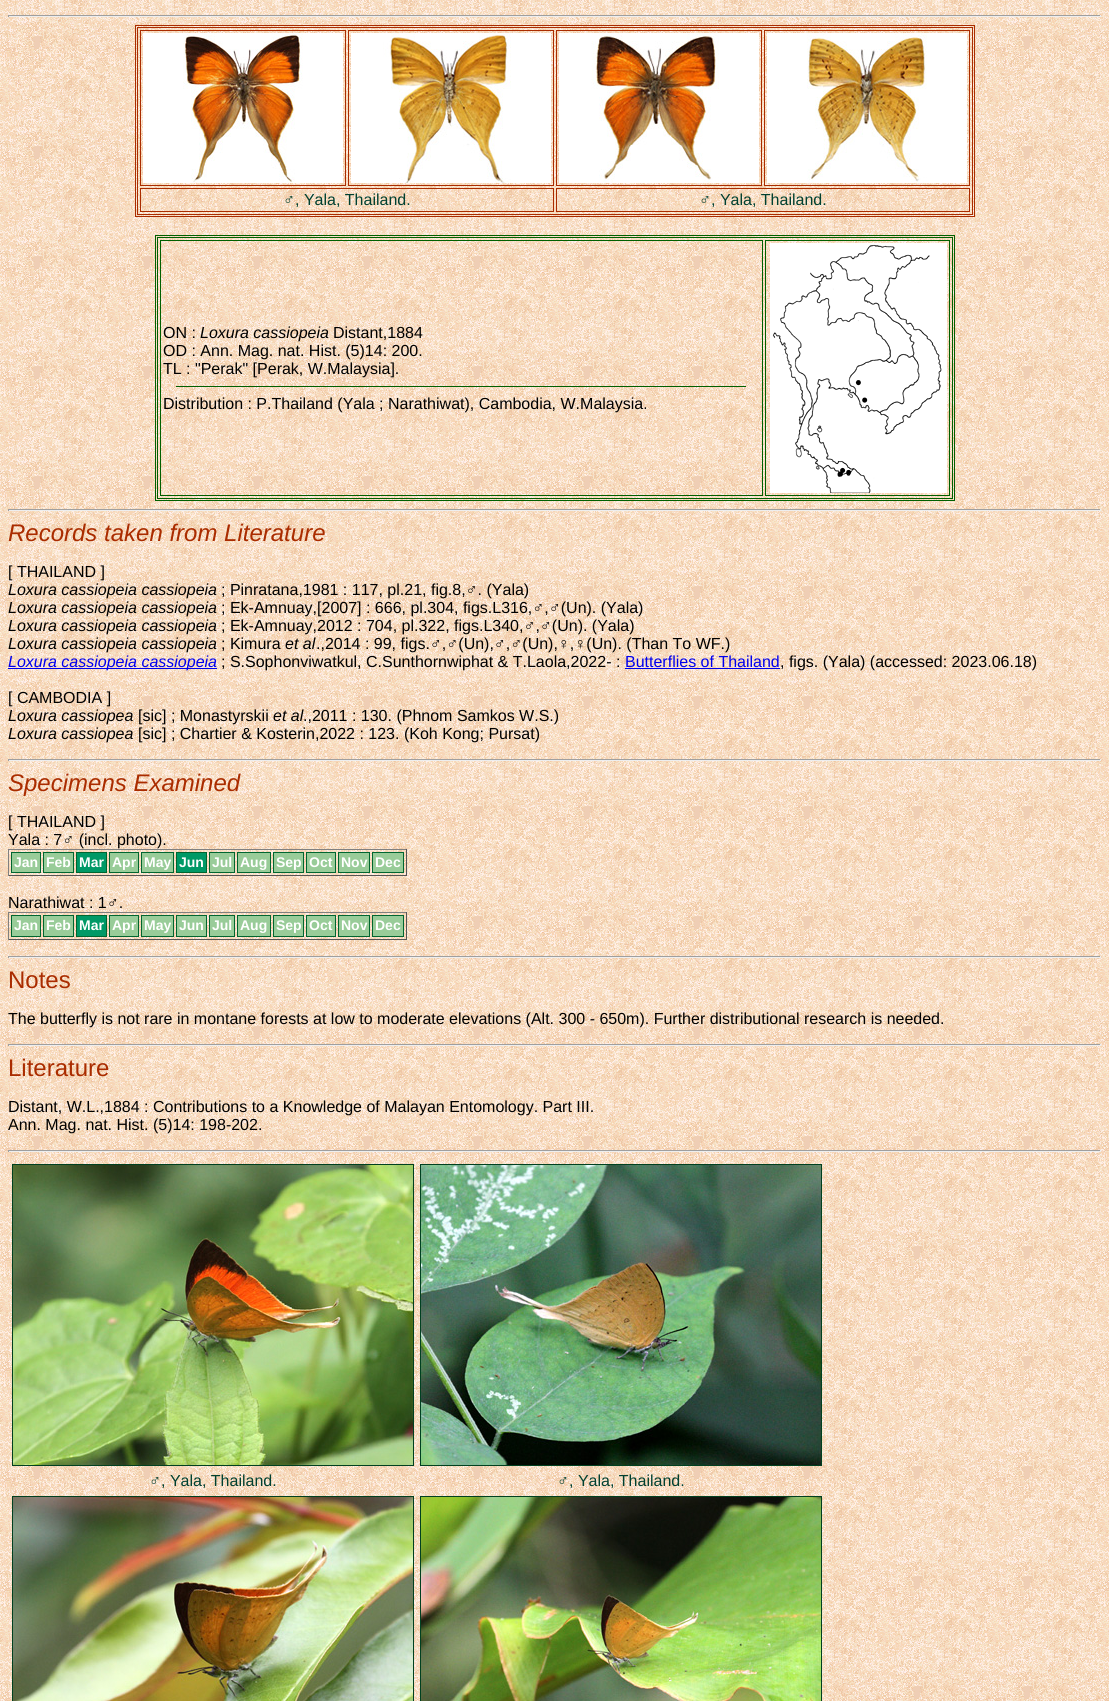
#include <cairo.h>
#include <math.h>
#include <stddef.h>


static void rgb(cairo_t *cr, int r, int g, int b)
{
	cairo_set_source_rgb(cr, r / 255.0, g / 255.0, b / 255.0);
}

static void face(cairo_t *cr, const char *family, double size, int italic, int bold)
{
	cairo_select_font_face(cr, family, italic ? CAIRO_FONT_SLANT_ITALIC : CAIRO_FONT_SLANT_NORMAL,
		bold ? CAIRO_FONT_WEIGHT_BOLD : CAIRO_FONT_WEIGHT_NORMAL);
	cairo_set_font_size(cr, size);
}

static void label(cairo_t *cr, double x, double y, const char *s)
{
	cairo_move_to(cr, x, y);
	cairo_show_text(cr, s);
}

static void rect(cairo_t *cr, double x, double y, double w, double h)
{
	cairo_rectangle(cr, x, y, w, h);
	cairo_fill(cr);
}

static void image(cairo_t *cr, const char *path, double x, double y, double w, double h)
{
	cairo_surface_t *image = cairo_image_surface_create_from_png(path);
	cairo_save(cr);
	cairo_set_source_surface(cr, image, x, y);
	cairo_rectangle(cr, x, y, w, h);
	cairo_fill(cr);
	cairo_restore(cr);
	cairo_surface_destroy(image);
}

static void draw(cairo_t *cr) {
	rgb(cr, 255, 255, 255);
	cairo_paint(cr);
	image(cr, "image0.png", 0, 0, 1109, 1701);
	rgb(cr, 159, 159, 159);
	rect(cr, 8, 15, 1093, 1);
	rgb(cr, 238, 238, 238);
	rect(cr, 1100, 15, 1, 2);
	rect(cr, 8, 16, 1093, 1);
	rgb(cr, 159, 159, 159);
	rect(cr, 8, 15, 1, 2);
	cairo_rectangle(cr, 135.5, 25.5, 839, 191);
	rgb(cr, 170, 44, 0);
	cairo_set_line_width(cr, 1);
	cairo_stroke(cr);
	cairo_rectangle(cr, 137.5, 27.5, 835, 187);
	cairo_stroke(cr);
	cairo_rectangle(cr, 140.5, 30.5, 205, 155);
	cairo_stroke(cr);
	image(cr, "image1.png", 143, 33, 200, 150);
	cairo_rectangle(cr, 348.5, 30.5, 205, 155);
	cairo_stroke(cr);
	image(cr, "image2.png", 351, 33, 200, 150);
	cairo_rectangle(cr, 556.5, 30.5, 205, 155);
	cairo_stroke(cr);
	image(cr, "image3.png", 559, 33, 200, 150);
	cairo_rectangle(cr, 764.5, 30.5, 205, 155);
	cairo_stroke(cr);
	image(cr, "image4.png", 767, 33, 200, 150);
	cairo_rectangle(cr, 140.5, 188.5, 413, 23);
	cairo_stroke(cr);
	face(cr, "Liberation Sans", 16, 0, 0);
	rgb(cr, 0, 64, 48);
	label(cr, 283, 205, "♂, Yala, Thailand.");
	cairo_rectangle(cr, 556.5, 188.5, 413, 23);
	rgb(cr, 170, 44, 0);
	cairo_stroke(cr);
	rgb(cr, 0, 64, 48);
	label(cr, 699, 205, "♂, Yala, Thailand.");
	cairo_rectangle(cr, 155.5, 235.5, 799, 265);
	rgb(cr, 0, 96, 0);
	cairo_stroke(cr);
	cairo_rectangle(cr, 157.5, 237.5, 795, 261);
	cairo_stroke(cr);
	cairo_rectangle(cr, 160.5, 240.5, 602, 255);
	cairo_stroke(cr);
	rgb(cr, 0, 0, 0);
	label(cr, 163, 338, "ON :");
	face(cr, "Liberation Sans", 16, 1, 0);
	label(cr, 200, 338, "Loxura cassiopeia");
	face(cr, "Liberation Sans", 16, 0, 0);
	label(cr, 333, 338, "Distant,1884");
	label(cr, 163, 356, "OD : Ann. Mag. nat. Hist. (5)14: 200.");
	label(cr, 163, 374, "TL : \"Perak\" [Perak, W.Malaysia].");
	rgb(cr, 0, 96, 0);
	rect(cr, 176, 386, 570, 1);
	rgb(cr, 0, 0, 0);
	label(cr, 163, 409, "Distribution : P.Thailand (Yala ; Narathiwat), Cambodia, W.Malaysia.");
	cairo_rectangle(cr, 765.5, 240.5, 184, 255);
	rgb(cr, 0, 96, 0);
	cairo_stroke(cr);
	image(cr, "image5.png", 770, 243, 177, 250);
	rgb(cr, 159, 159, 159);
	rect(cr, 8, 509, 1093, 1);
	rgb(cr, 238, 238, 238);
	rect(cr, 1100, 509, 1, 2);
	rect(cr, 8, 510, 1093, 1);
	rgb(cr, 159, 159, 159);
	rect(cr, 8, 509, 1, 2);
	face(cr, "Liberation Sans", 24, 1, 0);
	rgb(cr, 170, 44, 0);
	label(cr, 8, 541, "Records taken from Literature");
	face(cr, "Liberation Sans", 16, 0, 0);
	rgb(cr, 0, 0, 0);
	label(cr, 8, 577, "[ THAILAND ]");
	face(cr, "Liberation Sans", 16, 1, 0);
	label(cr, 8, 595, "Loxura cassiopeia cassiopeia");
	face(cr, "Liberation Sans", 16, 0, 0);
	label(cr, 221, 595, "; Pinratana,1981 : 117, pl.21, fig.8,♂. (Yala)");
	face(cr, "Liberation Sans", 16, 1, 0);
	label(cr, 8, 613, "Loxura cassiopeia cassiopeia");
	face(cr, "Liberation Sans", 16, 0, 0);
	label(cr, 221, 613, "; Ek-Amnuay,[2007] : 666, pl.304, figs.L316,♂,♂(Un). (Yala)");
	face(cr, "Liberation Sans", 16, 1, 0);
	label(cr, 8, 631, "Loxura cassiopeia cassiopeia");
	face(cr, "Liberation Sans", 16, 0, 0);
	label(cr, 221, 631, "; Ek-Amnuay,2012 : 704, pl.322, figs.L340,♂,♂(Un). (Yala)");
	face(cr, "Liberation Sans", 16, 1, 0);
	label(cr, 8, 649, "Loxura cassiopeia cassiopeia");
	face(cr, "Liberation Sans", 16, 0, 0);
	label(cr, 221, 649, "; Kimura");
	face(cr, "Liberation Sans", 16, 1, 0);
	label(cr, 285, 649, "et al");
	face(cr, "Liberation Sans", 16, 0, 0);
	label(cr, 316, 649, ".,2014 : 99, figs.♂,♂(Un),♂,♂(Un),♀,♀(Un). (Than To WF.)");
	rgb(cr, 0, 0, 238);
	rect(cr, 8, 668, 209, 1);
	face(cr, "Liberation Sans", 16, 1, 0);
	label(cr, 8, 667, "Loxura cassiopeia cassiopeia");
	face(cr, "Liberation Sans", 16, 0, 0);
	rgb(cr, 0, 0, 0);
	label(cr, 221, 667, "; S.Sophonviwatkul, C.Sunthornwiphat & T.Laola,2022- :");
	rgb(cr, 0, 0, 238);
	label(cr, 625, 667, "Butterflies of Thailand");
	rect(cr, 625, 668, 155, 1);
	rgb(cr, 0, 0, 0);
	label(cr, 780, 667, ", figs. (Yala) (accessed: 2023.06.18)");
	label(cr, 8, 703, "[ CAMBODIA ]");
	face(cr, "Liberation Sans", 16, 1, 0);
	label(cr, 8, 721, "Loxura cassiopea");
	face(cr, "Liberation Sans", 16, 0, 0);
	label(cr, 138, 721, "[sic] ; Monastyrskii");
	face(cr, "Liberation Sans", 16, 1, 0);
	label(cr, 273, 721, "et al");
	face(cr, "Liberation Sans", 16, 0, 0);
	label(cr, 303, 721, ".,2011 : 130. (Phnom Samkos W.S.)");
	face(cr, "Liberation Sans", 16, 1, 0);
	label(cr, 8, 739, "Loxura cassiopea");
	face(cr, "Liberation Sans", 16, 0, 0);
	label(cr, 138, 739, "[sic] ; Chartier & Kosterin,2022 : 123. (Koh Kong; Pursat)");
	rgb(cr, 159, 159, 159);
	rect(cr, 8, 759, 1093, 1);
	rgb(cr, 238, 238, 238);
	rect(cr, 1100, 759, 1, 2);
	rect(cr, 8, 760, 1093, 1);
	rgb(cr, 159, 159, 159);
	rect(cr, 8, 759, 1, 2);
	face(cr, "Liberation Sans", 24, 1, 0);
	rgb(cr, 170, 44, 0);
	label(cr, 8, 791, "Specimens Examined");
	face(cr, "Liberation Sans", 16, 0, 0);
	rgb(cr, 0, 0, 0);
	label(cr, 8, 827, "[ THAILAND ]");
	label(cr, 8, 845, "Yala : 7♂ (incl. photo).");
	rgb(cr, 128, 128, 128);
	rect(cr, 8, 849, 399, 1);
	rgb(cr, 85, 85, 85);
	rect(cr, 406, 849, 1, 27);
	rect(cr, 8, 875, 399, 1);
	rgb(cr, 128, 128, 128);
	rect(cr, 8, 849, 1, 27);
	rgb(cr, 153, 204, 153);
	cairo_rectangle(cr, 11.5, 852.5, 29, 20);
	cairo_fill_preserve(cr);
	rgb(cr, 0, 102, 48);
	cairo_stroke(cr);
	face(cr, "Liberation Sans", 14, 0, 1);
	rgb(cr, 255, 255, 255);
	label(cr, 14, 867, "Jan");
	rgb(cr, 153, 204, 153);
	cairo_rectangle(cr, 43.5, 852.5, 30, 20);
	cairo_fill_preserve(cr);
	rgb(cr, 0, 102, 48);
	cairo_stroke(cr);
	rgb(cr, 255, 255, 255);
	label(cr, 46, 867, "Feb");
	rgb(cr, 0, 153, 102);
	cairo_rectangle(cr, 76.5, 852.5, 30, 20);
	cairo_fill_preserve(cr);
	rgb(cr, 0, 102, 48);
	cairo_stroke(cr);
	rgb(cr, 255, 255, 255);
	label(cr, 79, 867, "Mar");
	rgb(cr, 153, 204, 153);
	cairo_rectangle(cr, 109.5, 852.5, 29, 20);
	cairo_fill_preserve(cr);
	rgb(cr, 0, 102, 48);
	cairo_stroke(cr);
	rgb(cr, 255, 255, 255);
	label(cr, 112, 867, "Apr");
	rgb(cr, 153, 204, 153);
	cairo_rectangle(cr, 141.5, 852.5, 32, 20);
	cairo_fill_preserve(cr);
	rgb(cr, 0, 102, 48);
	cairo_stroke(cr);
	rgb(cr, 255, 255, 255);
	label(cr, 144, 867, "May");
	rgb(cr, 0, 153, 102);
	cairo_rectangle(cr, 176.5, 852.5, 30, 20);
	cairo_fill_preserve(cr);
	rgb(cr, 0, 102, 48);
	cairo_stroke(cr);
	rgb(cr, 255, 255, 255);
	label(cr, 179, 867, "Jun");
	rgb(cr, 153, 204, 153);
	cairo_rectangle(cr, 209.5, 852.5, 25, 20);
	cairo_fill_preserve(cr);
	rgb(cr, 0, 102, 48);
	cairo_stroke(cr);
	rgb(cr, 255, 255, 255);
	label(cr, 212, 867, "Jul");
	rgb(cr, 153, 204, 153);
	cairo_rectangle(cr, 237.5, 852.5, 33, 20);
	cairo_fill_preserve(cr);
	rgb(cr, 0, 102, 48);
	cairo_stroke(cr);
	rgb(cr, 255, 255, 255);
	label(cr, 240, 867, "Aug");
	rgb(cr, 153, 204, 153);
	cairo_rectangle(cr, 273.5, 852.5, 30, 20);
	cairo_fill_preserve(cr);
	rgb(cr, 0, 102, 48);
	cairo_stroke(cr);
	rgb(cr, 255, 255, 255);
	label(cr, 276, 867, "Sep");
	rgb(cr, 153, 204, 153);
	cairo_rectangle(cr, 306.5, 852.5, 29, 20);
	cairo_fill_preserve(cr);
	rgb(cr, 0, 102, 48);
	cairo_stroke(cr);
	rgb(cr, 255, 255, 255);
	label(cr, 309, 867, "Oct");
	rgb(cr, 153, 204, 153);
	cairo_rectangle(cr, 338.5, 852.5, 31, 20);
	cairo_fill_preserve(cr);
	rgb(cr, 0, 102, 48);
	cairo_stroke(cr);
	rgb(cr, 255, 255, 255);
	label(cr, 341, 867, "Nov");
	rgb(cr, 153, 204, 153);
	cairo_rectangle(cr, 372.5, 852.5, 31, 20);
	cairo_fill_preserve(cr);
	rgb(cr, 0, 102, 48);
	cairo_stroke(cr);
	rgb(cr, 255, 255, 255);
	label(cr, 375, 867, "Dec");
	face(cr, "Liberation Sans", 16, 0, 0);
	rgb(cr, 0, 0, 0);
	label(cr, 8, 908, "Narathiwat : 1♂.");
	rgb(cr, 128, 128, 128);
	rect(cr, 8, 912, 399, 1);
	rgb(cr, 85, 85, 85);
	rect(cr, 406, 912, 1, 28);
	rect(cr, 8, 939, 399, 1);
	rgb(cr, 128, 128, 128);
	rect(cr, 8, 912, 1, 28);
	rgb(cr, 153, 204, 153);
	cairo_rectangle(cr, 11.5, 915.5, 29, 21);
	cairo_fill_preserve(cr);
	rgb(cr, 0, 102, 48);
	cairo_stroke(cr);
	face(cr, "Liberation Sans", 14, 0, 1);
	rgb(cr, 255, 255, 255);
	label(cr, 14, 930, "Jan");
	rgb(cr, 153, 204, 153);
	cairo_rectangle(cr, 43.5, 915.5, 30, 21);
	cairo_fill_preserve(cr);
	rgb(cr, 0, 102, 48);
	cairo_stroke(cr);
	rgb(cr, 255, 255, 255);
	label(cr, 46, 930, "Feb");
	rgb(cr, 0, 153, 102);
	cairo_rectangle(cr, 76.5, 915.5, 30, 21);
	cairo_fill_preserve(cr);
	rgb(cr, 0, 102, 48);
	cairo_stroke(cr);
	rgb(cr, 255, 255, 255);
	label(cr, 79, 930, "Mar");
	rgb(cr, 153, 204, 153);
	cairo_rectangle(cr, 109.5, 915.5, 29, 21);
	cairo_fill_preserve(cr);
	rgb(cr, 0, 102, 48);
	cairo_stroke(cr);
	rgb(cr, 255, 255, 255);
	label(cr, 112, 930, "Apr");
	rgb(cr, 153, 204, 153);
	cairo_rectangle(cr, 141.5, 915.5, 32, 21);
	cairo_fill_preserve(cr);
	rgb(cr, 0, 102, 48);
	cairo_stroke(cr);
	rgb(cr, 255, 255, 255);
	label(cr, 144, 930, "May");
	rgb(cr, 153, 204, 153);
	cairo_rectangle(cr, 176.5, 915.5, 30, 21);
	cairo_fill_preserve(cr);
	rgb(cr, 0, 102, 48);
	cairo_stroke(cr);
	rgb(cr, 255, 255, 255);
	label(cr, 179, 930, "Jun");
	rgb(cr, 153, 204, 153);
	cairo_rectangle(cr, 209.5, 915.5, 25, 21);
	cairo_fill_preserve(cr);
	rgb(cr, 0, 102, 48);
	cairo_stroke(cr);
	rgb(cr, 255, 255, 255);
	label(cr, 212, 930, "Jul");
	rgb(cr, 153, 204, 153);
	cairo_rectangle(cr, 237.5, 915.5, 33, 21);
	cairo_fill_preserve(cr);
	rgb(cr, 0, 102, 48);
	cairo_stroke(cr);
	rgb(cr, 255, 255, 255);
	label(cr, 240, 930, "Aug");
	rgb(cr, 153, 204, 153);
	cairo_rectangle(cr, 273.5, 915.5, 30, 21);
	cairo_fill_preserve(cr);
	rgb(cr, 0, 102, 48);
	cairo_stroke(cr);
	rgb(cr, 255, 255, 255);
	label(cr, 276, 930, "Sep");
	rgb(cr, 153, 204, 153);
	cairo_rectangle(cr, 306.5, 915.5, 29, 21);
	cairo_fill_preserve(cr);
	rgb(cr, 0, 102, 48);
	cairo_stroke(cr);
	rgb(cr, 255, 255, 255);
	label(cr, 309, 930, "Oct");
	rgb(cr, 153, 204, 153);
	cairo_rectangle(cr, 338.5, 915.5, 31, 21);
	cairo_fill_preserve(cr);
	rgb(cr, 0, 102, 48);
	cairo_stroke(cr);
	rgb(cr, 255, 255, 255);
	label(cr, 341, 930, "Nov");
	rgb(cr, 153, 204, 153);
	cairo_rectangle(cr, 372.5, 915.5, 31, 21);
	cairo_fill_preserve(cr);
	rgb(cr, 0, 102, 48);
	cairo_stroke(cr);
	rgb(cr, 255, 255, 255);
	label(cr, 375, 930, "Dec");
	rgb(cr, 159, 159, 159);
	rect(cr, 8, 956, 1093, 1);
	rgb(cr, 238, 238, 238);
	rect(cr, 1100, 956, 1, 2);
	rect(cr, 8, 957, 1093, 1);
	rgb(cr, 159, 159, 159);
	rect(cr, 8, 956, 1, 2);
	face(cr, "Liberation Sans", 24, 0, 0);
	rgb(cr, 170, 44, 0);
	label(cr, 8, 988, "Notes");
	face(cr, "Liberation Sans", 16, 0, 0);
	rgb(cr, 0, 0, 0);
	label(cr, 8, 1024, "The butterfly is not rare in montane forests at low to moderate elevations (Alt. 300 - 650m). Further distributional research is needed.");
	rgb(cr, 159, 159, 159);
	rect(cr, 8, 1044, 1093, 1);
	rgb(cr, 238, 238, 238);
	rect(cr, 1100, 1044, 1, 2);
	rect(cr, 8, 1045, 1093, 1);
	rgb(cr, 159, 159, 159);
	rect(cr, 8, 1044, 1, 2);
	face(cr, "Liberation Sans", 24, 0, 0);
	rgb(cr, 170, 44, 0);
	label(cr, 8, 1076, "Literature");
	face(cr, "Liberation Sans", 16, 0, 0);
	rgb(cr, 0, 0, 0);
	label(cr, 8, 1112, "Distant, W.L.,1884 : Contributions to a Knowledge of Malayan Entomology. Part III.");
	label(cr, 8, 1130, "Ann. Mag. nat. Hist. (5)14: 198-202.");
	rgb(cr, 159, 159, 159);
	rect(cr, 8, 1150, 1093, 1);
	rgb(cr, 238, 238, 238);
	rect(cr, 1100, 1150, 1, 2);
	rect(cr, 8, 1151, 1093, 1);
	rgb(cr, 159, 159, 159);
	rect(cr, 8, 1150, 1, 2);
	cairo_rectangle(cr, 12.5, 1164.5, 401, 301);
	rgb(cr, 0, 64, 32);
	cairo_stroke(cr);
	image(cr, "image6.png", 13, 1165, 400, 300);
	cairo_rectangle(cr, 420.5, 1164.5, 401, 301);
	cairo_stroke(cr);
	image(cr, "image7.png", 421, 1165, 400, 300);
	rgb(cr, 0, 64, 48);
	label(cr, 149, 1486, "♂, Yala, Thailand.");
	label(cr, 557, 1486, "♂, Yala, Thailand.");
	cairo_rectangle(cr, 12.5, 1496.5, 401, 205);
	rgb(cr, 0, 64, 32);
	cairo_stroke(cr);
	image(cr, "image8.png", 13, 1497, 400, 204);
	cairo_rectangle(cr, 420.5, 1496.5, 401, 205);
	cairo_stroke(cr);
	image(cr, "image9.png", 421, 1497, 400, 204);
}

int main(void) {
	cairo_surface_t *surface = cairo_image_surface_create(CAIRO_FORMAT_RGB24, 1109, 1701);
	cairo_t *cr = cairo_create(surface);
	cairo_font_options_t *options = cairo_font_options_create();
	cairo_font_options_set_hint_metrics(options, CAIRO_HINT_METRICS_OFF);
	cairo_font_options_set_hint_style(options, CAIRO_HINT_STYLE_NONE);
	cairo_set_font_options(cr, options);
	cairo_set_miter_limit(cr, 4);
	draw(cr);
	cairo_surface_write_to_png(surface, "render.png");
	cairo_font_options_destroy(options);
	cairo_destroy(cr);
	cairo_surface_destroy(surface);
	return 0;
}
